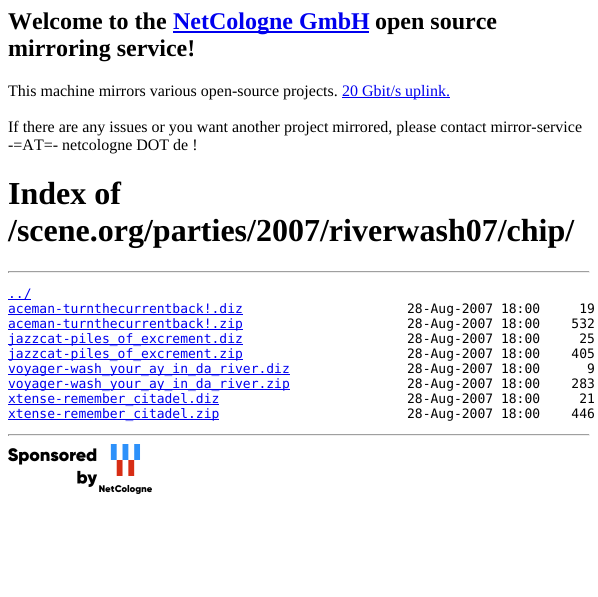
#include <cairo.h>
#include <math.h>
#include <stddef.h>


static void rgb(cairo_t *cr, int r, int g, int b)
{
	cairo_set_source_rgb(cr, r / 255.0, g / 255.0, b / 255.0);
}

static void face(cairo_t *cr, const char *family, double size, int italic, int bold)
{
	cairo_select_font_face(cr, family, italic ? CAIRO_FONT_SLANT_ITALIC : CAIRO_FONT_SLANT_NORMAL,
		bold ? CAIRO_FONT_WEIGHT_BOLD : CAIRO_FONT_WEIGHT_NORMAL);
	cairo_set_font_size(cr, size);
}

static void label(cairo_t *cr, double x, double y, const char *s)
{
	cairo_move_to(cr, x, y);
	cairo_show_text(cr, s);
}

static void rect(cairo_t *cr, double x, double y, double w, double h)
{
	cairo_rectangle(cr, x, y, w, h);
	cairo_fill(cr);
}

static void image(cairo_t *cr, const char *path, double x, double y, double w, double h)
{
	cairo_surface_t *image = cairo_image_surface_create_from_png(path);
	cairo_save(cr);
	cairo_set_source_surface(cr, image, x, y);
	cairo_rectangle(cr, x, y, w, h);
	cairo_fill(cr);
	cairo_restore(cr);
	cairo_surface_destroy(image);
}

static void draw(cairo_t *cr) {
	rgb(cr, 255, 255, 255);
	cairo_paint(cr);
	face(cr, "Liberation Serif", 24, 0, 1);
	rgb(cr, 0, 0, 0);
	label(cr, 8, 29, "Welcome to the");
	rgb(cr, 0, 0, 238);
	rect(cr, 173, 31, 196, 2);
	label(cr, 173, 29, "NetCologne GmbH");
	rgb(cr, 0, 0, 0);
	label(cr, 375, 29, "open source");
	label(cr, 8, 56, "mirroring service!");
	face(cr, "Liberation Serif", 16, 0, 0);
	label(cr, 8, 96, "This machine mirrors various open-source projects.");
	rgb(cr, 0, 0, 238);
	rect(cr, 342, 97, 108, 1);
	label(cr, 342, 96, "20 Gbit/s uplink.");
	rgb(cr, 0, 0, 0);
	label(cr, 8, 132, "If there are any issues or you want another project mirrored, please contact mirror-service");
	label(cr, 8, 150, "-=AT=- netcologne DOT de !");
	face(cr, "Liberation Serif", 32, 0, 1);
	label(cr, 8, 204, "Index of");
	label(cr, 8, 241, "/scene.org/parties/2007/riverwash07/chip/");
	rgb(cr, 159, 159, 159);
	rect(cr, 8, 271, 582, 1);
	rgb(cr, 238, 238, 238);
	rect(cr, 589, 271, 1, 2);
	rect(cr, 8, 272, 582, 1);
	rgb(cr, 159, 159, 159);
	rect(cr, 8, 271, 1, 2);
	rgb(cr, 0, 0, 238);
	rect(cr, 8, 299, 23, 1);
	face(cr, "DejaVu Sans Mono", 13, 0, 0);
	label(cr, 8, 298, "../");
	label(cr, 8, 313, "aceman-turnthecurrentback!.diz");
	rect(cr, 8, 314, 235, 1);
	rgb(cr, 0, 0, 0);
	label(cr, 407, 313, "28-Aug-2007 18:00     19");
	rgb(cr, 0, 0, 238);
	rect(cr, 8, 329, 235, 1);
	label(cr, 8, 328, "aceman-turnthecurrentback!.zip");
	rgb(cr, 0, 0, 0);
	label(cr, 407, 328, "28-Aug-2007 18:00    532");
	rgb(cr, 0, 0, 238);
	rect(cr, 8, 344, 235, 1);
	label(cr, 8, 343, "jazzcat-piles_of_excrement.diz");
	rgb(cr, 0, 0, 0);
	label(cr, 407, 343, "28-Aug-2007 18:00     25");
	rgb(cr, 0, 0, 238);
	rect(cr, 8, 359, 235, 1);
	label(cr, 8, 358, "jazzcat-piles_of_excrement.zip");
	rgb(cr, 0, 0, 0);
	label(cr, 407, 358, "28-Aug-2007 18:00    405");
	rgb(cr, 0, 0, 238);
	rect(cr, 8, 374, 282, 1);
	label(cr, 8, 373, "voyager-wash_your_ay_in_da_river.diz");
	rgb(cr, 0, 0, 0);
	label(cr, 407, 373, "28-Aug-2007 18:00      9");
	rgb(cr, 0, 0, 238);
	rect(cr, 8, 389, 282, 1);
	label(cr, 8, 388, "voyager-wash_your_ay_in_da_river.zip");
	rgb(cr, 0, 0, 0);
	label(cr, 407, 388, "28-Aug-2007 18:00    283");
	rgb(cr, 0, 0, 238);
	rect(cr, 8, 404, 211, 1);
	label(cr, 8, 403, "xtense-remember_citadel.diz");
	rgb(cr, 0, 0, 0);
	label(cr, 407, 403, "28-Aug-2007 18:00     21");
	rgb(cr, 0, 0, 238);
	rect(cr, 8, 419, 211, 1);
	label(cr, 8, 418, "xtense-remember_citadel.zip");
	rgb(cr, 0, 0, 0);
	label(cr, 407, 418, "28-Aug-2007 18:00    446");
	rgb(cr, 159, 159, 159);
	rect(cr, 8, 434, 582, 1);
	rgb(cr, 238, 238, 238);
	rect(cr, 589, 434, 1, 2);
	rect(cr, 8, 435, 582, 1);
	rgb(cr, 159, 159, 159);
	rect(cr, 8, 434, 1, 2);
	image(cr, "image0.png", 8, 444, 144, 50);
}

int main(void) {
	cairo_surface_t *surface = cairo_image_surface_create(CAIRO_FORMAT_RGB24, 598, 597);
	cairo_t *cr = cairo_create(surface);
	cairo_font_options_t *options = cairo_font_options_create();
	cairo_font_options_set_hint_metrics(options, CAIRO_HINT_METRICS_OFF);
	cairo_font_options_set_hint_style(options, CAIRO_HINT_STYLE_NONE);
	cairo_set_font_options(cr, options);
	cairo_set_miter_limit(cr, 4);
	draw(cr);
	cairo_surface_write_to_png(surface, "render.png");
	cairo_font_options_destroy(options);
	cairo_destroy(cr);
	cairo_surface_destroy(surface);
	return 0;
}
